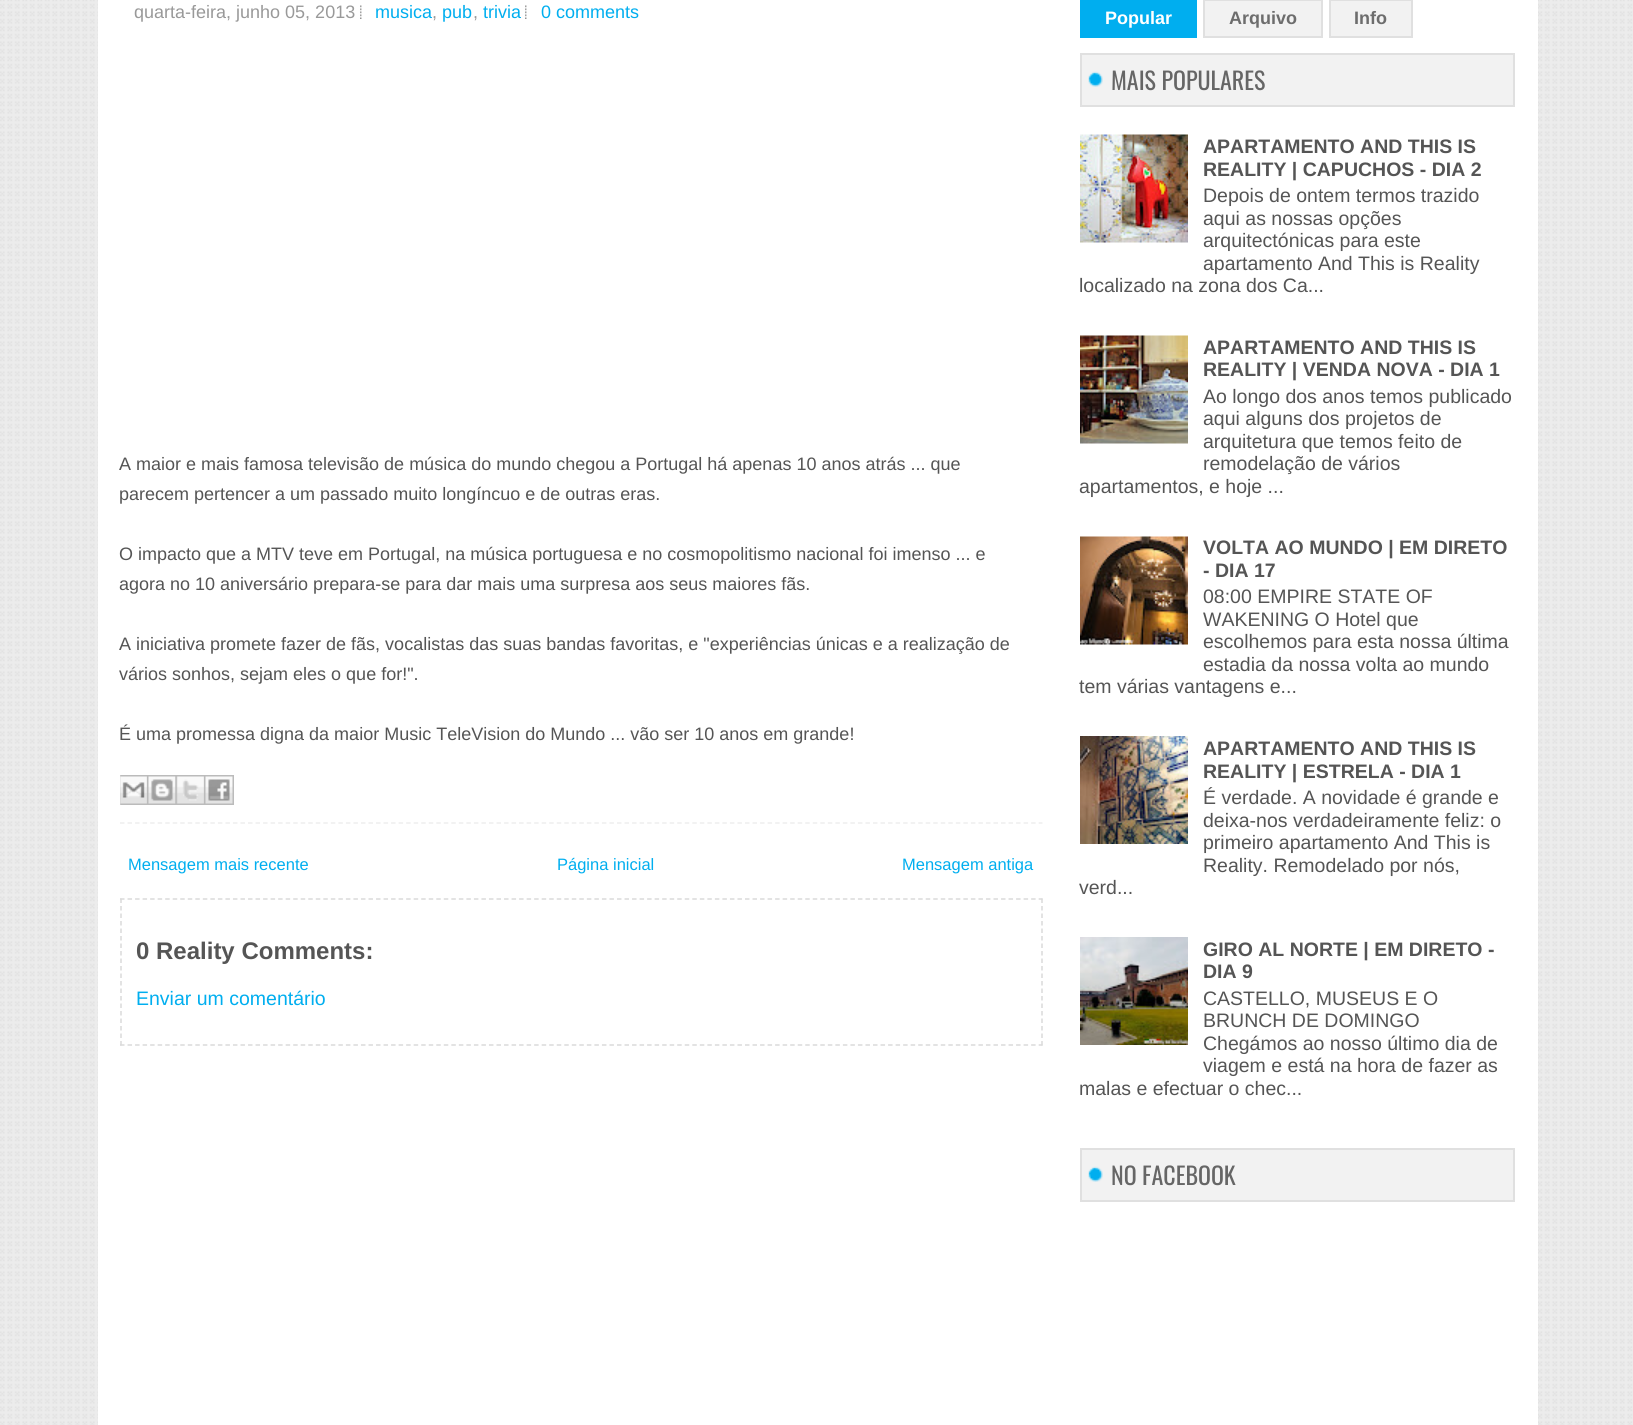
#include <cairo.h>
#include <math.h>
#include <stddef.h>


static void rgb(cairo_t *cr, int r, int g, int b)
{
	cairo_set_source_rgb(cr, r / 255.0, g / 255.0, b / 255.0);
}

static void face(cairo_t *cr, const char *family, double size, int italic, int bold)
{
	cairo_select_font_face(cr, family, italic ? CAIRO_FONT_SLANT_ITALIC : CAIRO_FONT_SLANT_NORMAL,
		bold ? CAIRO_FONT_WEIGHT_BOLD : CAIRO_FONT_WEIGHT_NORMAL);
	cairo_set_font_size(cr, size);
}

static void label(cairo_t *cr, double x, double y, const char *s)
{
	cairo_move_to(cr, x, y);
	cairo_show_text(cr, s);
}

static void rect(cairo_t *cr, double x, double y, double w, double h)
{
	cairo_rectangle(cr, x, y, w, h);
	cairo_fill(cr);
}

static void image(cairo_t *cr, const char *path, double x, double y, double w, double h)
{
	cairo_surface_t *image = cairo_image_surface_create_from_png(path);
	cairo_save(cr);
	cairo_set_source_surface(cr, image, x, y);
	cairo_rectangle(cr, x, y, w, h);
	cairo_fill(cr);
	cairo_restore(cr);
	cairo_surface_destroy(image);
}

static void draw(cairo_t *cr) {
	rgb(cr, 255, 255, 255);
	cairo_paint(cr);
	image(cr, "image0.png", 0, 0, 1633, 1425);
	rgb(cr, 255, 255, 255);
	rect(cr, 98, 0, 1440, 1425);
	cairo_new_path(cr);
	cairo_move_to(cr, 120, 823);
	cairo_line_to(cr, 1042.5, 823);
	rgb(cr, 238, 238, 238);
	cairo_set_line_width(cr, 1.5);
	cairo_set_dash(cr, (double[]){4.5, 3.03}, 2, 0);
	cairo_stroke(cr);
	face(cr, "Liberation Sans", 18, 0, 0);
	rgb(cr, 153, 153, 153);
	label(cr, 134, 18, "quarta-feira, junho 05, 2013");
	image(cr, "image1.png", 360, 5, 2, 14);
	rgb(cr, 0, 174, 239);
	label(cr, 375, 18, "musica");
	rgb(cr, 153, 153, 153);
	label(cr, 432, 18, ",");
	rgb(cr, 0, 174, 239);
	label(cr, 442, 18, "pub");
	rgb(cr, 153, 153, 153);
	label(cr, 473, 18, ",");
	rgb(cr, 0, 174, 239);
	label(cr, 483, 18, "trivia");
	image(cr, "image1.png", 525, 5, 2, 14);
	label(cr, 541, 18, "0 comments");
	rgb(cr, 85, 85, 85);
	label(cr, 119, 470, "A maior e mais famosa televisão de música do mundo chegou a Portugal há apenas 10 anos atrás ... que");
	label(cr, 119, 500, "parecem pertencer a um passado muito longíncuo e de outras eras.");
	label(cr, 119, 560, "O impacto que a MTV teve em Portugal, na música portuguesa e no cosmopolitismo nacional foi imenso ... e");
	label(cr, 119, 590, "agora no 10 aniversário prepara-se para dar mais uma surpresa aos seus maiores fãs.");
	label(cr, 119, 650, "A iniciativa promete fazer de fãs, vocalistas das suas bandas favoritas, e \"experiências únicas e a realização de");
	label(cr, 119, 680, "vários sonhos, sejam eles o que for!\".");
	label(cr, 119, 740, "É uma promessa digna da maior Music TeleVision do Mundo ... vão ser 10 anos em grande!");
	image(cr, "image2.png", 120, 775, 27, 30);
	image(cr, "image3.png", 147, 775, 29, 30);
	image(cr, "image4.png", 175, 775, 29, 30);
	image(cr, "image5.png", 204, 775, 30, 30);
	face(cr, "Liberation Sans", 16.5, 0, 0);
	rgb(cr, 0, 174, 239);
	label(cr, 128, 870, "Mensagem mais recente");
	label(cr, 557, 870, "Página inicial");
	label(cr, 902, 870, "Mensagem antiga");
	cairo_new_path(cr);
	cairo_move_to(cr, 120, 899);
	cairo_line_to(cr, 1042.5, 899);
	rgb(cr, 218, 218, 218);
	cairo_stroke(cr);
	cairo_new_path(cr);
	cairo_move_to(cr, 1042, 898.5);
	cairo_line_to(cr, 1042, 1045.5);
	cairo_set_dash(cr, (double[]){4.5, 3}, 2, 0);
	cairo_stroke(cr);
	cairo_new_path(cr);
	cairo_move_to(cr, 120, 1045);
	cairo_line_to(cr, 1042.5, 1045);
	cairo_set_dash(cr, (double[]){4.5, 3.03}, 2, 0);
	cairo_stroke(cr);
	cairo_new_path(cr);
	cairo_move_to(cr, 121, 898.5);
	cairo_line_to(cr, 121, 1045.5);
	cairo_set_dash(cr, (double[]){4.5, 3}, 2, 0);
	cairo_stroke(cr);
	face(cr, "Liberation Sans", 24, 0, 1);
	rgb(cr, 85, 85, 85);
	label(cr, 136, 959, "0 Reality Comments:");
	face(cr, "Liberation Sans", 19.5, 0, 0);
	rgb(cr, 0, 174, 239);
	label(cr, 136, 1005, "Enviar um comentário");
	rect(cr, 1080, 0, 117, 38);
	face(cr, "Liberation Sans", 18, 0, 1);
	rgb(cr, 255, 255, 255);
	label(cr, 1105, 24, "Popular");
	rgb(cr, 242, 242, 242);
	cairo_rectangle(cr, 1204, 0, 118, 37);
	cairo_fill_preserve(cr);
	rgb(cr, 224, 224, 224);
	cairo_set_line_width(cr, 2);
	cairo_set_dash(cr, NULL, 0, 0);
	cairo_stroke(cr);
	rgb(cr, 109, 109, 109);
	label(cr, 1229, 24, "Arquivo");
	rgb(cr, 242, 242, 242);
	cairo_rectangle(cr, 1330, 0, 82, 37);
	cairo_fill_preserve(cr);
	rgb(cr, 224, 224, 224);
	cairo_stroke(cr);
	rgb(cr, 109, 109, 109);
	label(cr, 1354, 24, "Info");
	rgb(cr, 242, 242, 242);
	rect(cr, 1082, 55, 431, 50);
	image(cr, "image6.png", 1088, 71, 15, 16);
	cairo_rectangle(cr, 1081, 54, 433, 52);
	rgb(cr, 224, 224, 224);
	cairo_stroke(cr);
	face(cr, "Oswald", 24, 0, 0);
	rgb(cr, 102, 102, 102);
	label(cr, 1111, 90, "MAIS POPULARES");
	image(cr, "image7.png", 1080, 134, 108, 109);
	face(cr, "Liberation Sans", 19.5, 0, 1);
	rgb(cr, 85, 85, 85);
	label(cr, 1203, 153, "APARTAMENTO AND THIS IS");
	label(cr, 1203, 176, "REALITY | CAPUCHOS - DIA 2");
	face(cr, "Liberation Sans", 19.5, 0, 0);
	label(cr, 1203, 202, "Depois de ontem termos trazido");
	label(cr, 1203, 225, "aqui as nossas opções");
	label(cr, 1203, 247, "arquitectónicas para este");
	label(cr, 1203, 270, "apartamento And This is Reality");
	label(cr, 1079, 292, "localizado na zona dos Ca...");
	image(cr, "image8.png", 1080, 335, 108, 109);
	face(cr, "Liberation Sans", 19.5, 0, 1);
	label(cr, 1203, 354, "APARTAMENTO AND THIS IS");
	label(cr, 1203, 376, "REALITY | VENDA NOVA - DIA 1");
	face(cr, "Liberation Sans", 19.5, 0, 0);
	label(cr, 1203, 403, "Ao longo dos anos temos publicado");
	label(cr, 1203, 425, "aqui alguns dos projetos de");
	label(cr, 1203, 448, "arquitetura que temos feito de");
	label(cr, 1203, 470, "remodelação de vários");
	label(cr, 1079, 493, "apartamentos, e hoje ...");
	image(cr, "image9.png", 1080, 536, 108, 109);
	face(cr, "Liberation Sans", 19.5, 0, 1);
	label(cr, 1203, 554, "VOLTA AO MUNDO | EM DIRETO");
	label(cr, 1203, 577, "- DIA 17");
	face(cr, "Liberation Sans", 19.5, 0, 0);
	label(cr, 1203, 603, "08:00 EMPIRE STATE OF");
	label(cr, 1203, 626, "WAKENING O Hotel que");
	label(cr, 1203, 648, "escolhemos para esta nossa última");
	label(cr, 1203, 671, "estadia da nossa volta ao mundo");
	label(cr, 1079, 693, "tem várias vantagens e...");
	image(cr, "image10.png", 1080, 736, 108, 108);
	face(cr, "Liberation Sans", 19.5, 0, 1);
	label(cr, 1203, 755, "APARTAMENTO AND THIS IS");
	label(cr, 1203, 778, "REALITY | ESTRELA - DIA 1");
	face(cr, "Liberation Sans", 19.5, 0, 0);
	label(cr, 1203, 804, "É verdade. A novidade é grande e");
	label(cr, 1203, 827, "deixa-nos verdadeiramente feliz: o");
	label(cr, 1203, 849, "primeiro apartamento And This is");
	label(cr, 1203, 872, "Reality. Remodelado por nós,");
	label(cr, 1079, 894, "verd...");
	image(cr, "image11.png", 1080, 937, 108, 108);
	face(cr, "Liberation Sans", 19.5, 0, 1);
	label(cr, 1203, 956, "GIRO AL NORTE | EM DIRETO -");
	label(cr, 1203, 978, "DIA 9");
	face(cr, "Liberation Sans", 19.5, 0, 0);
	label(cr, 1203, 1005, "CASTELLO, MUSEUS E O");
	label(cr, 1203, 1027, "BRUNCH DE DOMINGO");
	label(cr, 1203, 1050, "Chegámos ao nosso último dia de");
	label(cr, 1203, 1072, "viagem e está na hora de fazer as");
	label(cr, 1079, 1095, "malas e efectuar o chec...");
	rgb(cr, 242, 242, 242);
	rect(cr, 1082, 1150, 431, 50);
	image(cr, "image6.png", 1088, 1166, 15, 16);
	cairo_rectangle(cr, 1081, 1149, 433, 52);
	rgb(cr, 224, 224, 224);
	cairo_stroke(cr);
	face(cr, "Oswald", 24, 0, 0);
	rgb(cr, 102, 102, 102);
	label(cr, 1111, 1185, "NO FACEBOOK");
}

int main(void) {
	cairo_surface_t *surface = cairo_image_surface_create(CAIRO_FORMAT_RGB24, 1633, 1425);
	cairo_t *cr = cairo_create(surface);
	cairo_font_options_t *options = cairo_font_options_create();
	cairo_font_options_set_hint_metrics(options, CAIRO_HINT_METRICS_OFF);
	cairo_font_options_set_hint_style(options, CAIRO_HINT_STYLE_NONE);
	cairo_set_font_options(cr, options);
	cairo_set_miter_limit(cr, 4);
	draw(cr);
	cairo_surface_write_to_png(surface, "render.png");
	cairo_font_options_destroy(options);
	cairo_destroy(cr);
	cairo_surface_destroy(surface);
	return 0;
}
